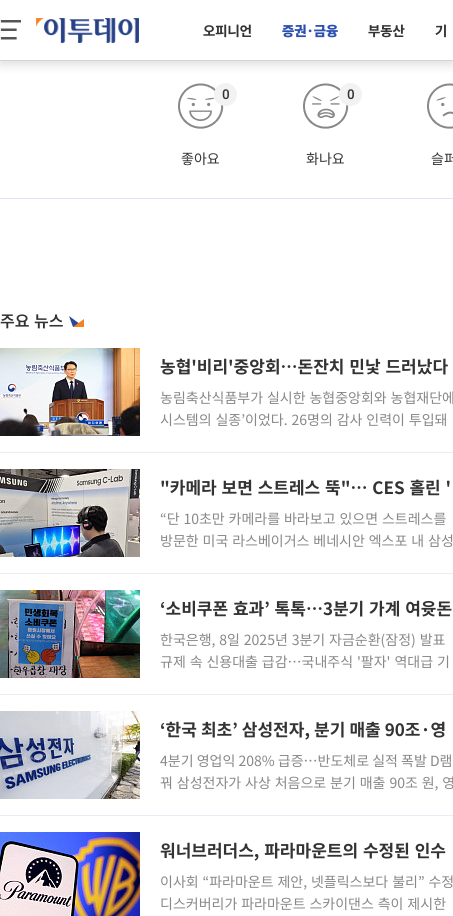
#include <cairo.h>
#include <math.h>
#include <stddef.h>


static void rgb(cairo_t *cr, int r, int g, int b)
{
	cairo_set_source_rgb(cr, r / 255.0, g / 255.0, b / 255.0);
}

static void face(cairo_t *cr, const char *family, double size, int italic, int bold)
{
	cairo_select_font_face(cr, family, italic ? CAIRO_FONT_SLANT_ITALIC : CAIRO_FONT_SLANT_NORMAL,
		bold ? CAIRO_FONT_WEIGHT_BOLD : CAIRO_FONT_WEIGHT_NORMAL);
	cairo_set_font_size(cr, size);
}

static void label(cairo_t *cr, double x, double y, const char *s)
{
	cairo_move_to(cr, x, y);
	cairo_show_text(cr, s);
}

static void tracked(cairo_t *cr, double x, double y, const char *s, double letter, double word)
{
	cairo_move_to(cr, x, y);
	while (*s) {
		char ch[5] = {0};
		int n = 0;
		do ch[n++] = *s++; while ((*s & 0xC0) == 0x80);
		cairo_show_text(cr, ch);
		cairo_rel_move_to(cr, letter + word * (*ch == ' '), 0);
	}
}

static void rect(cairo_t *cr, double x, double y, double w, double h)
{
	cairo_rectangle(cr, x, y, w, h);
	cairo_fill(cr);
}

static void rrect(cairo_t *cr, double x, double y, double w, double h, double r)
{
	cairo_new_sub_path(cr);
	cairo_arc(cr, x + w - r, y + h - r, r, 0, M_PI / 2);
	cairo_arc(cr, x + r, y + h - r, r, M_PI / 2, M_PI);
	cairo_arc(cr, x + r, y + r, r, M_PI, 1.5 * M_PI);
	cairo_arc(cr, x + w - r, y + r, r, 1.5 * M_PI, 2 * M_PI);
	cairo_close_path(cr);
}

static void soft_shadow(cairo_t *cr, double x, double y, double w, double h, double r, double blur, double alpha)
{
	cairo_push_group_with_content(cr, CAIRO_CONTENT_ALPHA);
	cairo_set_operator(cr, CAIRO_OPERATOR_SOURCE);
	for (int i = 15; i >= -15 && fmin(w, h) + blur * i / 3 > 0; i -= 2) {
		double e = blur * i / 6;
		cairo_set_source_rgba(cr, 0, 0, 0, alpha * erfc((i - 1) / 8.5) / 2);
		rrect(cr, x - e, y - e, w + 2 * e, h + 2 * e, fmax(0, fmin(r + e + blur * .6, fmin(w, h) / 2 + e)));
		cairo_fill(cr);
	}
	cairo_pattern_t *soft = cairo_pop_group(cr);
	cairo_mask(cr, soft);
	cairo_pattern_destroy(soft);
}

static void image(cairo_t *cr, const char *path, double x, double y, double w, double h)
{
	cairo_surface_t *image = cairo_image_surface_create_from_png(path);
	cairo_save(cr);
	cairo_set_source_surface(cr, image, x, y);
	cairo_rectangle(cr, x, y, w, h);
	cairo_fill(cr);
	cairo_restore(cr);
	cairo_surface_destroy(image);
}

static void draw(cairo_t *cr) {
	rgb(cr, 255, 255, 255);
	cairo_paint(cr);
	rgb(cr, 0, 0, 0);
	soft_shadow(cr, 0, 4, 453, 61, 0, 5, 0.13);
	rgb(cr, 255, 255, 255);
	rect(cr, 0, 0, 453, 60);
	rgb(cr, 212, 212, 212);
	rect(cr, 0, 60, 453, 1);
	image(cr, "image0.png", 0, 20, 21, 20);
	image(cr, "image1.png", 36, 18, 103, 25);
	face(cr, "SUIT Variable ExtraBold", 14, 0, 0);
	rgb(cr, 51, 51, 51);
	label(cr, 203, 36, "오피니언");
	face(cr, "SUIT Variable Black", 14, 0, 0);
	rgb(cr, 42, 79, 175);
	label(cr, 282, 36, "증권·금융");
	face(cr, "SUIT Variable ExtraBold", 14, 0, 0);
	rgb(cr, 51, 51, 51);
	label(cr, 368, 36, "부동산");
	label(cr, 435, 36, "기");
	rgb(cr, 224, 228, 241);
	rect(cr, 0, 198, 453, 1);
	image(cr, "image2.png", 178, 83, 46, 46);
	rgb(cr, 242, 242, 242);
	cairo_arc(cr, 225.5, 94.5, 11.5, 0, 2 * M_PI);
	cairo_fill(cr);
	face(cr, "Roboto", 13, 0, 1);
	rgb(cr, 51, 51, 51);
	label(cr, 222, 99, "0");
	face(cr, "Noto Sans KR", 14, 0, 0);
	label(cr, 181, 164, "좋아요");
	image(cr, "image3.png", 303, 83, 46, 46);
	rgb(cr, 242, 242, 242);
	cairo_arc(cr, 350.5, 94.5, 11.5, 0, 2 * M_PI);
	cairo_fill(cr);
	face(cr, "Roboto", 13, 0, 1);
	rgb(cr, 51, 51, 51);
	label(cr, 347, 99, "0");
	face(cr, "Noto Sans KR", 14, 0, 0);
	label(cr, 306, 164, "화나요");
	image(cr, "image4.png", 427, 83, 26, 46);
	label(cr, 431, 164, "슬퍼");
	face(cr, "Noto Sans KR SemiBold", 16, 0, 0);
	tracked(cr, 0, 327, "주요 뉴스", 0, 1);
	image(cr, "image5.png", 69, 316, 15, 11);
	rgb(cr, 234, 237, 245);
	rect(cr, 0, 452, 453, 1);
	image(cr, "image6.png", 0, 348, 140, 88);
	face(cr, "Noto Sans KR", 17, 0, 1);
	rgb(cr, 51, 51, 51);
	tracked(cr, 160, 373, "농협'비리'중앙회…돈잔치 민낯 드러났다", 0, 1);
	face(cr, "Noto Sans KR", 14, 0, 0);
	rgb(cr, 136, 136, 136);
	tracked(cr, 160, 403, "농림축산식품부가 실시한 농협중앙회와 농협재단에", 0, 0.75);
	tracked(cr, 160, 425, "시스템의 실종’이었다. 26명의 감사 인력이 투입돼", 0, 0.75);
	rgb(cr, 234, 237, 245);
	rect(cr, 0, 573, 453, 1);
	image(cr, "image7.png", 0, 469, 140, 88);
	face(cr, "Noto Sans KR", 17, 0, 1);
	rgb(cr, 51, 51, 51);
	tracked(cr, 160, 494, "\"카메라 보면 스트레스 뚝\"… CES 홀린 '", 0, 1);
	face(cr, "Noto Sans KR", 14, 0, 0);
	rgb(cr, 136, 136, 136);
	tracked(cr, 160, 524, "“단 10초만 카메라를 바라보고 있으면 스트레스를", 0, 0.75);
	tracked(cr, 160, 546, "방문한 미국 라스베이거스 베네시안 엑스포 내 삼성", 0, 0.75);
	rgb(cr, 234, 237, 245);
	rect(cr, 0, 694, 453, 1);
	image(cr, "image8.png", 0, 590, 140, 88);
	face(cr, "Noto Sans KR", 17, 0, 1);
	rgb(cr, 51, 51, 51);
	tracked(cr, 160, 615, "‘소비쿠폰 효과’ 톡톡⋯3분기 가계 여윳돈", 0, 1);
	face(cr, "Noto Sans KR", 14, 0, 0);
	rgb(cr, 136, 136, 136);
	tracked(cr, 160, 645, "한국은행, 8일 2025년 3분기 자금순환(잠정) 발표", 0, 0.75);
	tracked(cr, 160, 667, "규제 속 신용대출 급감⋯국내주식 '팔자' 역대급 기", 0, 0.75);
	rgb(cr, 234, 237, 245);
	rect(cr, 0, 815, 453, 1);
	image(cr, "image9.png", 0, 711, 140, 88);
	face(cr, "Noto Sans KR", 17, 0, 1);
	rgb(cr, 51, 51, 51);
	tracked(cr, 160, 736, "‘한국 최초’ 삼성전자, 분기 매출 90조·영", 0, 0.25);
	face(cr, "Noto Sans KR", 14, 0, 0);
	rgb(cr, 136, 136, 136);
	label(cr, 160, 766, "4분기 영업익 208% 급증⋯반도체로 실적 폭발 D램");
	tracked(cr, 160, 788, "꿔 삼성전자가 사상 처음으로 분기 매출 90조 원, 영", 0, 0.75);
	image(cr, "image10.png", 0, 832, 140, 84);
	face(cr, "Noto Sans KR", 17, 0, 1);
	rgb(cr, 51, 51, 51);
	tracked(cr, 160, 857, "워너브러더스, 파라마운트의 수정된 인수", 0, 1);
	face(cr, "Noto Sans KR", 14, 0, 0);
	rgb(cr, 136, 136, 136);
	tracked(cr, 160, 887, "이사회 “파라마운트 제안, 넷플릭스보다 불리” 수정", 0, 0.75);
	tracked(cr, 160, 909, "디스커버리가 파라마운트 스카이댄스 측이 제시한", 0, 0.75);
}

int main(void) {
	cairo_surface_t *surface = cairo_image_surface_create(CAIRO_FORMAT_RGB24, 453, 916);
	cairo_t *cr = cairo_create(surface);
	cairo_font_options_t *options = cairo_font_options_create();
	cairo_font_options_set_hint_metrics(options, CAIRO_HINT_METRICS_OFF);
	cairo_font_options_set_hint_style(options, CAIRO_HINT_STYLE_NONE);
	cairo_set_font_options(cr, options);
	cairo_set_miter_limit(cr, 4);
	draw(cr);
	cairo_surface_write_to_png(surface, "render.png");
	cairo_font_options_destroy(options);
	cairo_destroy(cr);
	cairo_surface_destroy(surface);
	return 0;
}
